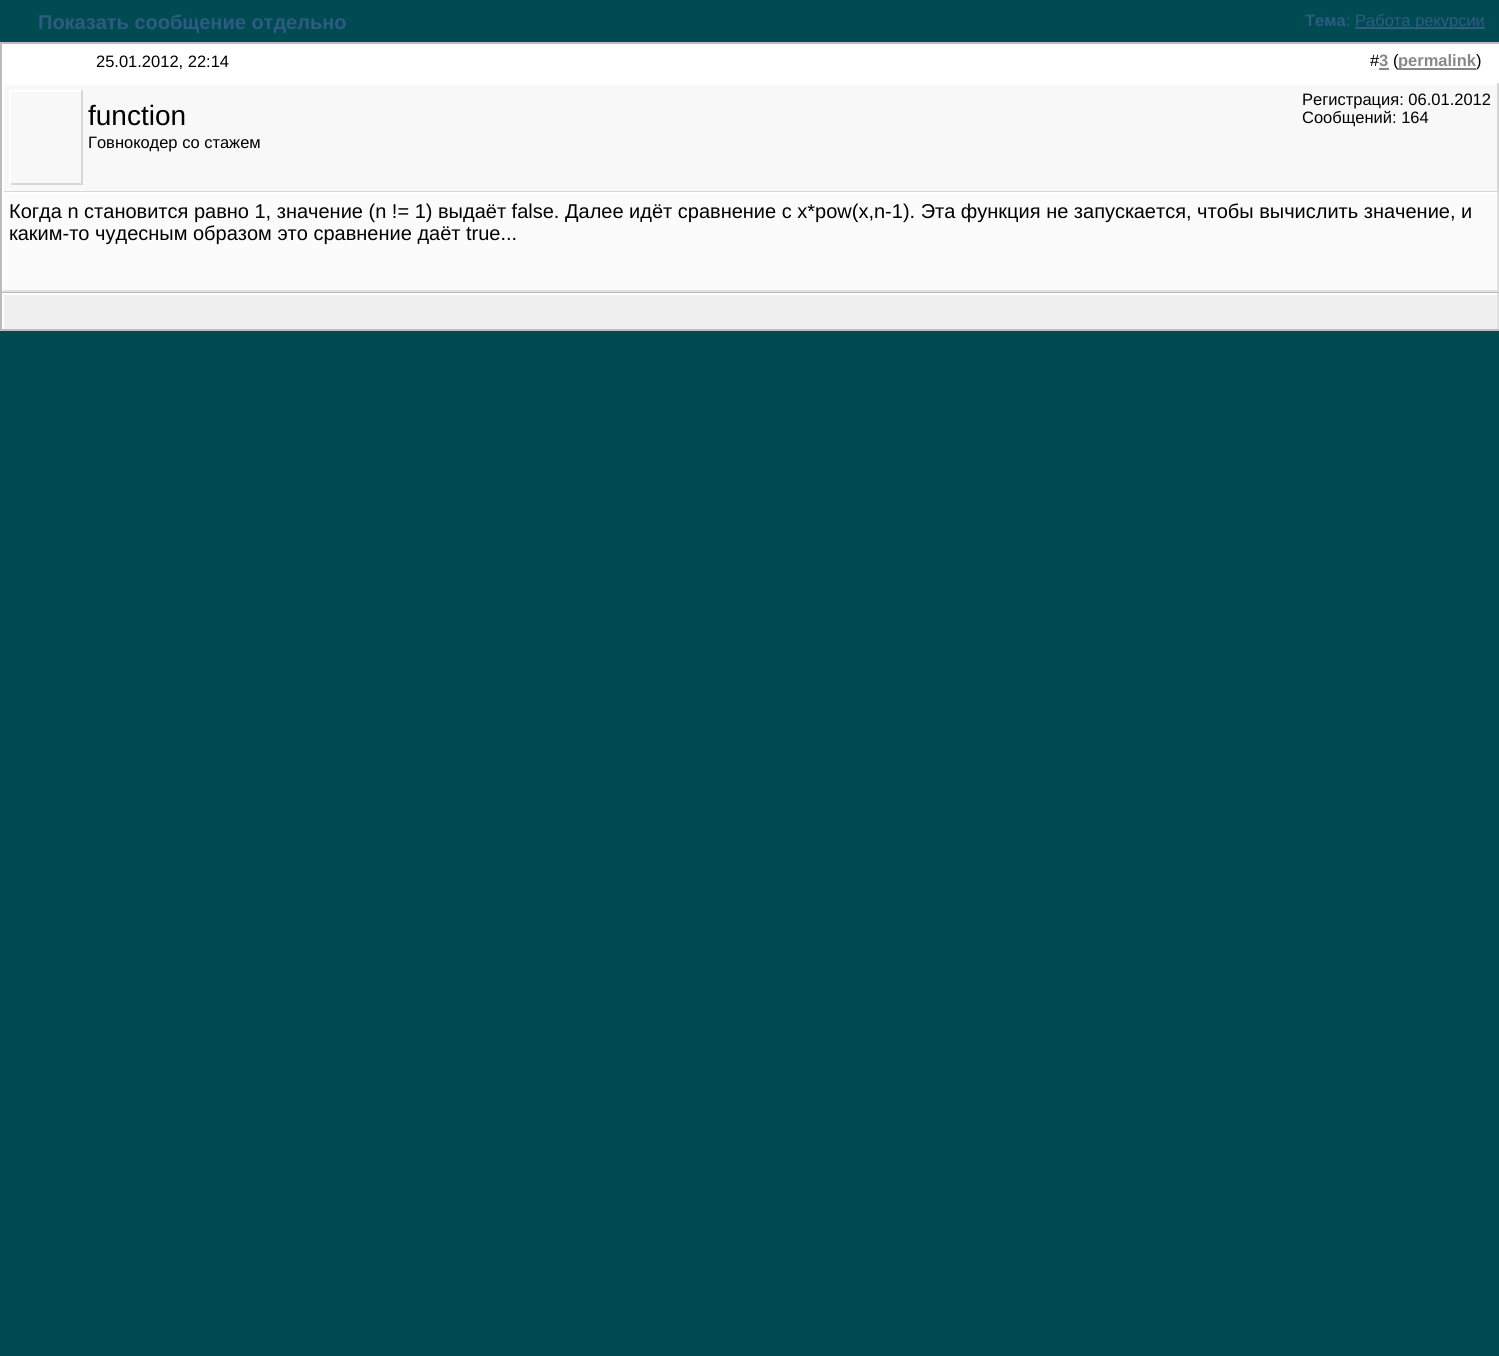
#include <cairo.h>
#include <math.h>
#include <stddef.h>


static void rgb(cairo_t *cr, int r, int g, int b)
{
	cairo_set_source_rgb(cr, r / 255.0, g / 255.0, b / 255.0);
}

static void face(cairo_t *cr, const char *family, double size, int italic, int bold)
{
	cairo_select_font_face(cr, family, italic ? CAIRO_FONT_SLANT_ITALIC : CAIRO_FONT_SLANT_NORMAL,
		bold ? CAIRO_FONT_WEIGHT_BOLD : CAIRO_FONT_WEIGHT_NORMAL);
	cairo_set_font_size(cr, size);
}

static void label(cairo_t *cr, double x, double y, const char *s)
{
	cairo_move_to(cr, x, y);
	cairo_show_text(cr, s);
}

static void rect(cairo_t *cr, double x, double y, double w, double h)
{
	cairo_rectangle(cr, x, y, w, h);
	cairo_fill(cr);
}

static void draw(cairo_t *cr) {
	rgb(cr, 0, 75, 82);
	cairo_paint(cr);
	face(cr, "Liberation Sans", 20, 0, 1);
	rgb(cr, 46, 91, 130);
	label(cr, 38, 29, "Показать сообщение отдельно");
	face(cr, "Liberation Sans", 16.5, 0, 1);
	label(cr, 1305, 26, "Тема");
	face(cr, "Liberation Sans", 16.5, 0, 0);
	label(cr, 1346, 26, ":");
	rect(cr, 1355, 27, 130, 2);
	label(cr, 1355, 26, "Работа рекурсии");
	cairo_rectangle(cr, 1, 43, 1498, 249);
	rgb(cr, 187, 187, 187);
	cairo_stroke(cr);
	rgb(cr, 255, 255, 255);
	rect(cr, 2, 44, 1497, 41);
	rgb(cr, 0, 0, 0);
	label(cr, 96, 67, "25.01.2012, 22:14");
	label(cr, 1370, 66, "#");
	face(cr, "Liberation Sans", 16.5, 0, 1);
	rgb(cr, 136, 136, 136);
	label(cr, 1379, 66, "3");
	rect(cr, 1379, 68, 10, 2);
	face(cr, "Liberation Sans", 16.5, 0, 0);
	rgb(cr, 0, 0, 0);
	label(cr, 1393, 66, "(");
	rgb(cr, 136, 136, 136);
	rect(cr, 1398, 68, 78, 2);
	face(cr, "Liberation Sans", 16.5, 0, 1);
	label(cr, 1398, 66, "permalink");
	face(cr, "Liberation Sans", 16.5, 0, 0);
	rgb(cr, 0, 0, 0);
	label(cr, 1476, 66, ")");
	rgb(cr, 248, 248, 248);
	rect(cr, 4, 85, 1493, 106);
	rgb(cr, 215, 215, 215);
	rect(cr, 1497, 83, 2, 109);
	rect(cr, 2, 191, 1497, 1);
	rgb(cr, 255, 255, 255);
	rect(cr, 2, 83, 2, 109);
	rect(cr, 9, 90, 74, 2);
	rgb(cr, 215, 215, 215);
	rect(cr, 81, 90, 2, 95);
	rect(cr, 9, 183, 74, 2);
	rgb(cr, 255, 255, 255);
	rect(cr, 9, 90, 2, 95);
	face(cr, "Liberation Sans", 28, 0, 0);
	rgb(cr, 0, 0, 0);
	label(cr, 88, 125, "function");
	face(cr, "Liberation Sans", 16.5, 0, 0);
	label(cr, 88, 148, "Говнокодер со стажем");
	label(cr, 1302, 105, "Регистрация: 06.01.2012");
	label(cr, 1302, 123, "Сообщений: 164");
	rgb(cr, 251, 251, 251);
	rect(cr, 4, 194, 1493, 96);
	rgb(cr, 255, 255, 255);
	rect(cr, 2, 192, 1497, 2);
	rgb(cr, 224, 224, 224);
	rect(cr, 1497, 192, 2, 99);
	rect(cr, 2, 290, 1497, 2);
	rgb(cr, 255, 255, 255);
	rect(cr, 2, 192, 2, 99);
	face(cr, "Liberation Sans", 20, 0, 0);
	rgb(cr, 0, 0, 0);
	label(cr, 9, 218, "Когда n становится равно 1, значение (n != 1) выдаёт false. Далее идёт сравнение с x*pow(x,n-1). Эта функция не запускается, чтобы вычислить значение, и");
	label(cr, 9, 240, "каким-то чудесным образом это сравнение даёт true...");
	rgb(cr, 187, 187, 187);
	rect(cr, 0, 329, 1499, 2);
	rect(cr, 0, 293, 2, 37);
	rgb(cr, 240, 240, 240);
	rect(cr, 4, 295, 1493, 34);
	rgb(cr, 255, 255, 255);
	rect(cr, 2, 293, 1497, 2);
	rgb(cr, 224, 224, 224);
	rect(cr, 1497, 293, 2, 36);
	rgb(cr, 255, 255, 255);
	rect(cr, 2, 293, 2, 36);
}

int main(void) {
	cairo_surface_t *surface = cairo_image_surface_create(CAIRO_FORMAT_RGB24, 1499, 1356);
	cairo_t *cr = cairo_create(surface);
	cairo_font_options_t *options = cairo_font_options_create();
	cairo_font_options_set_hint_metrics(options, CAIRO_HINT_METRICS_OFF);
	cairo_font_options_set_hint_style(options, CAIRO_HINT_STYLE_NONE);
	cairo_set_font_options(cr, options);
	cairo_set_miter_limit(cr, 4);
	draw(cr);
	cairo_surface_write_to_png(surface, "render.png");
	cairo_font_options_destroy(options);
	cairo_destroy(cr);
	cairo_surface_destroy(surface);
	return 0;
}
